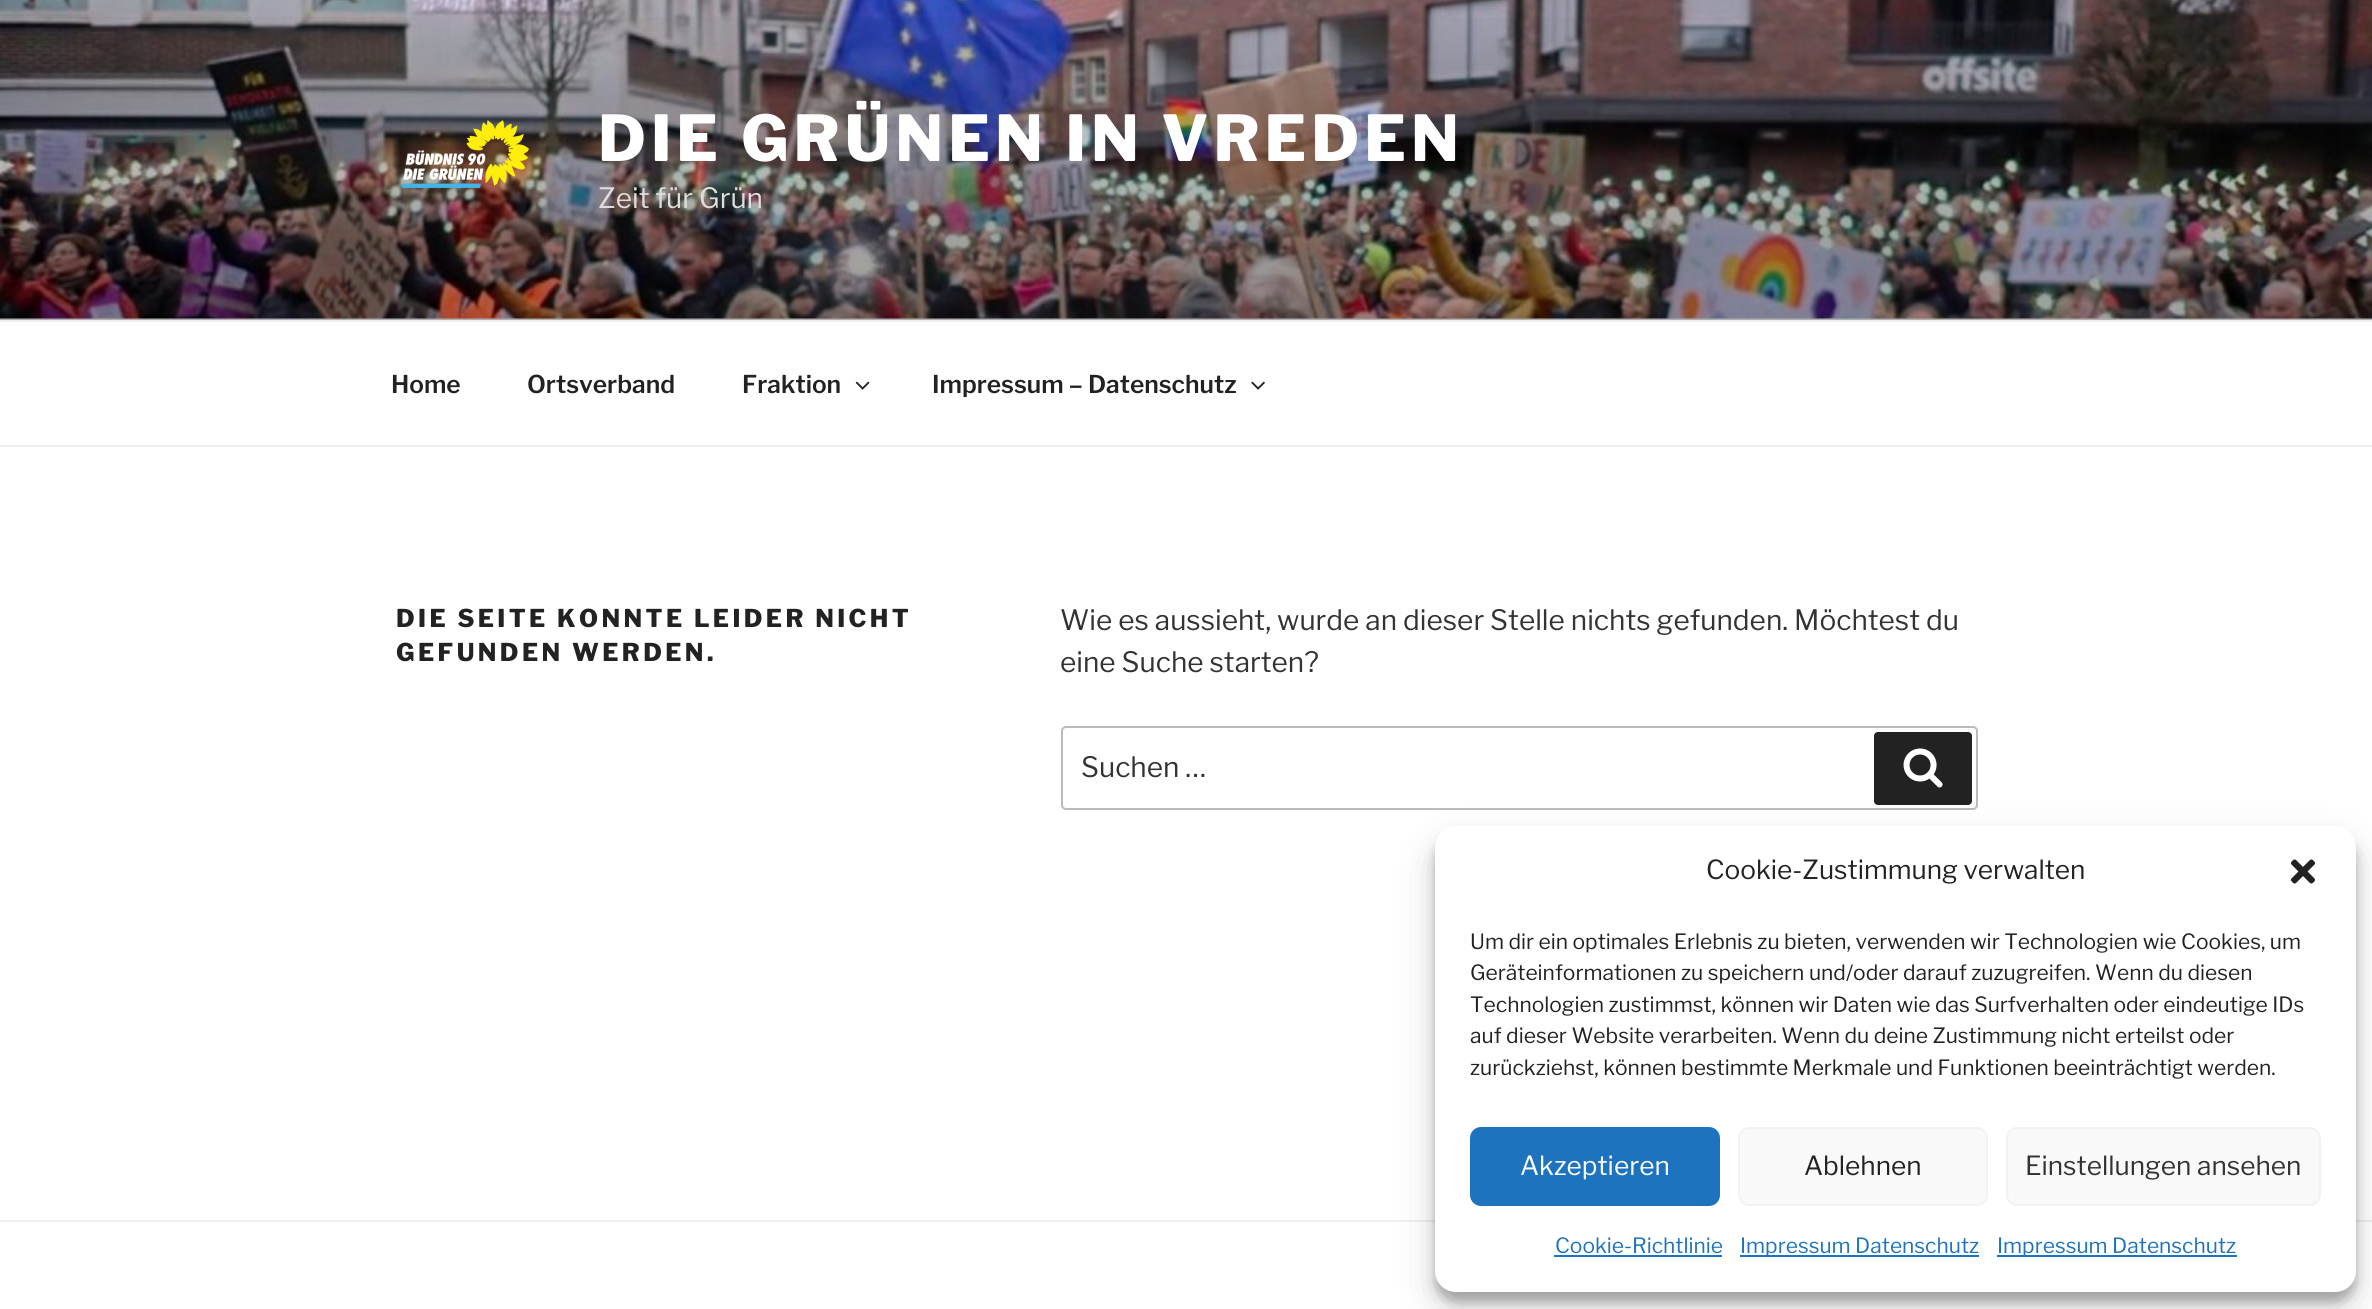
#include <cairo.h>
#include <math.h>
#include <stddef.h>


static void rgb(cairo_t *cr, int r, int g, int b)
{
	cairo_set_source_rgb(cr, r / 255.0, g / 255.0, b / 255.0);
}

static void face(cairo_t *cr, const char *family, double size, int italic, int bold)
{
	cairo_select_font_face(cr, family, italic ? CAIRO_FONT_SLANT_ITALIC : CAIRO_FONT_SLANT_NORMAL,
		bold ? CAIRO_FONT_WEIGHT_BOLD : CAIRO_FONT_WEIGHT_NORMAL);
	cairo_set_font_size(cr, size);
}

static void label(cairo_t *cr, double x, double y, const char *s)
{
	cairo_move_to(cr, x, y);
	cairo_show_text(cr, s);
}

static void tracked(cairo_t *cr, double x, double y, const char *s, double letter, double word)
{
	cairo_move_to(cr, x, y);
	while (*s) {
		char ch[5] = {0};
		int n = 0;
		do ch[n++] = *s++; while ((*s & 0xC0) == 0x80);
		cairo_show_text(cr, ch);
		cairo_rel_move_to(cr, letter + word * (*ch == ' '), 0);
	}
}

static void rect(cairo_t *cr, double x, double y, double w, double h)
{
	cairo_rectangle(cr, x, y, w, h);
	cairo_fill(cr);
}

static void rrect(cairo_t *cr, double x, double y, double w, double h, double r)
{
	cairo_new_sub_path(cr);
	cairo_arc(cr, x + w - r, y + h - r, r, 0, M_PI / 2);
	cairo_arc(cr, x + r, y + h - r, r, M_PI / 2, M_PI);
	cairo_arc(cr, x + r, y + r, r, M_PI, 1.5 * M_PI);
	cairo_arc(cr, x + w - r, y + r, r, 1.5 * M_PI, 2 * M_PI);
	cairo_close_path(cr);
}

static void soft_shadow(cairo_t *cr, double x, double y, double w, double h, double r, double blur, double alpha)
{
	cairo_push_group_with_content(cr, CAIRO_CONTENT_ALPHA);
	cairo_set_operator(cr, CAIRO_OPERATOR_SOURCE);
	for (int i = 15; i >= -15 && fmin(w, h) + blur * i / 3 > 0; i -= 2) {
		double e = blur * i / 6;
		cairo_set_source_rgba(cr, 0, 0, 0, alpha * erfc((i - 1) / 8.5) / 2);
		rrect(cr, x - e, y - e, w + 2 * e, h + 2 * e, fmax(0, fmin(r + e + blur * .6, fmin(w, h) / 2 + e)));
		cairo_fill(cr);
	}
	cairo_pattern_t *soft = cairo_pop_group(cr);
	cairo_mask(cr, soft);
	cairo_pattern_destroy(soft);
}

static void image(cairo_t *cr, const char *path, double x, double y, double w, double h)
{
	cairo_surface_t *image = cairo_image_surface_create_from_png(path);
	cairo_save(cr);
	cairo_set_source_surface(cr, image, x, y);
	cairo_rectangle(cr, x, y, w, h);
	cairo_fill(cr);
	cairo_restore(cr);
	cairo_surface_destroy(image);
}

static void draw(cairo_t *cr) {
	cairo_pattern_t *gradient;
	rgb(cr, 255, 255, 255);
	cairo_paint(cr);
	rgb(cr, 250, 250, 250);
	rect(cr, 0, 318, 2372, 2);
	image(cr, "image0.png", 0, 0, 2372, 319);
	gradient = cairo_pattern_create_linear(1187, 0, 1187, 320);
	cairo_pattern_add_color_stop_rgba(gradient, 0, 0, 0, 0, 0);
	cairo_pattern_add_color_stop_rgba(gradient, 0.75, 0, 0, 0, 0.3);
	cairo_pattern_add_color_stop_rgba(gradient, 1, 0, 0, 0, 0.3);
	cairo_set_source(cr, gradient);
	cairo_pattern_destroy(gradient);
	rect(cr, 0, 17, 2372, 303);
	image(cr, "image1.png", 401, 120, 129, 69);
	face(cr, "Libre Franklin Thin", 63, 0, 0);
	rgb(cr, 255, 255, 255);
	tracked(cr, 598, 161, "DIE GRÜNEN IN VREDEN", 5, 0);
	face(cr, "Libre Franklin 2 Thin", 28, 0, 0);
	rgb(cr, 222, 221, 221);
	label(cr, 598, 208, "Zeit für Grün");
	rgb(cr, 238, 238, 238);
	rect(cr, 0, 320, 2372, 2);
	rect(cr, 0, 445, 2372, 2);
	face(cr, "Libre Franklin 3 Thin", 24.5, 0, 0);
	rgb(cr, 34, 34, 34);
	label(cr, 391, 393, "Home");
	label(cr, 527, 393, "Ortsverband");
	label(cr, 742, 393, "Fraktion");
	image(cr, "image2.png", 855, 381, 15, 9);
	label(cr, 932, 393, "Impressum – Datenschutz");
	image(cr, "image3.png", 1251, 381, 14, 9);
	face(cr, "Libre Franklin Thin", 24.5, 0, 0);
	tracked(cr, 396, 627, "DIE SEITE KONNTE LEIDER NICHT", 3.4, 0);
	tracked(cr, 396, 661, "GEFUNDEN WERDEN.", 3.4, 0);
	face(cr, "Libre Franklin 2 Thin", 28, 0, 0);
	rgb(cr, 51, 51, 51);
	label(cr, 1060, 630, "Wie es aussieht, wurde an dieser Stelle nichts gefunden. Möchtest du");
	label(cr, 1060, 672, "eine Suche starten?");
	rrect(cr, 1062, 727, 915, 82, 4);
	rgb(cr, 187, 187, 187);
	cairo_stroke(cr);
	rgb(cr, 51, 51, 51);
	label(cr, 1081, 777, "Suchen …");
	rgb(cr, 34, 34, 34);
	rrect(cr, 1874, 732, 98, 73, 4);
	cairo_fill(cr);
	image(cr, "image4.png", 1903, 748, 40, 40);
	rgb(cr, 238, 238, 238);
	rect(cr, 0, 1220, 2372, 2);
	rgb(cr, 0, 0, 0);
	soft_shadow(cr, 1435, 837, 921, 465, 21, 5, 0.23);
	soft_shadow(cr, 1435, 844, 921, 465, 21, 17.5, 0.19);
	rgb(cr, 255, 255, 255);
	rrect(cr, 1435, 826, 921, 466, 21);
	cairo_fill(cr);
	face(cr, "Libre Franklin 2 Thin", 26.25, 0, 0);
	rgb(cr, 34, 34, 34);
	label(cr, 1706, 879, "Cookie-Zustimmung verwalten");
	image(cr, "image5.png", 2291, 859, 24, 25);
	face(cr, "Libre Franklin 2 Thin", 21, 0, 0);
	label(cr, 1470, 949, "Um dir ein optimales Erlebnis zu bieten, verwenden wir Technologien wie Cookies, um");
	label(cr, 1470, 980, "Geräteinformationen zu speichern und/oder darauf zuzugreifen. Wenn du diesen");
	label(cr, 1470, 1012, "Technologien zustimmst, können wir Daten wie das Surfverhalten oder eindeutige IDs");
	label(cr, 1470, 1043, "auf dieser Website verarbeiten. Wenn du deine Zustimmung nicht erteilst oder");
	label(cr, 1470, 1075, "zurückziehst, können bestimmte Merkmale und Funktionen beeinträchtigt werden.");
	rgb(cr, 30, 115, 190);
	rrect(cr, 1471, 1128, 248, 77, 10);
	cairo_fill_preserve(cr);
	cairo_stroke(cr);
	face(cr, "Libre Franklin 2 Thin", 26.25, 0, 0);
	rgb(cr, 255, 255, 255);
	label(cr, 1520, 1175, "Akzeptieren");
	rgb(cr, 249, 249, 249);
	rrect(cr, 1739, 1128, 248, 77, 10);
	cairo_fill_preserve(cr);
	rgb(cr, 242, 242, 242);
	cairo_stroke(cr);
	rgb(cr, 34, 34, 34);
	label(cr, 1804, 1175, "Ablehnen");
	rgb(cr, 249, 249, 249);
	rrect(cr, 2007, 1128, 313, 77, 10);
	cairo_fill_preserve(cr);
	rgb(cr, 242, 242, 242);
	cairo_stroke(cr);
	rgb(cr, 51, 51, 51);
	label(cr, 2025, 1175, "Einstellungen ansehen");
	face(cr, "Libre Franklin 2 Thin", 21, 0, 0);
	rgb(cr, 30, 115, 190);
	label(cr, 1555, 1253, "Cookie-Richtlinie");
	rect(cr, 1554, 1255, 168, 2);
	rect(cr, 1740, 1255, 239, 2);
	label(cr, 1740, 1253, "Impressum Datenschutz");
	rect(cr, 1997, 1255, 240, 2);
	label(cr, 1997, 1253, "Impressum Datenschutz");
}

int main(void) {
	cairo_surface_t *surface = cairo_image_surface_create(CAIRO_FORMAT_RGB24, 2372, 1309);
	cairo_t *cr = cairo_create(surface);
	cairo_font_options_t *options = cairo_font_options_create();
	cairo_font_options_set_hint_metrics(options, CAIRO_HINT_METRICS_OFF);
	cairo_font_options_set_hint_style(options, CAIRO_HINT_STYLE_NONE);
	cairo_set_font_options(cr, options);
	cairo_set_miter_limit(cr, 4);
	draw(cr);
	cairo_surface_write_to_png(surface, "render.png");
	cairo_font_options_destroy(options);
	cairo_destroy(cr);
	cairo_surface_destroy(surface);
	return 0;
}
